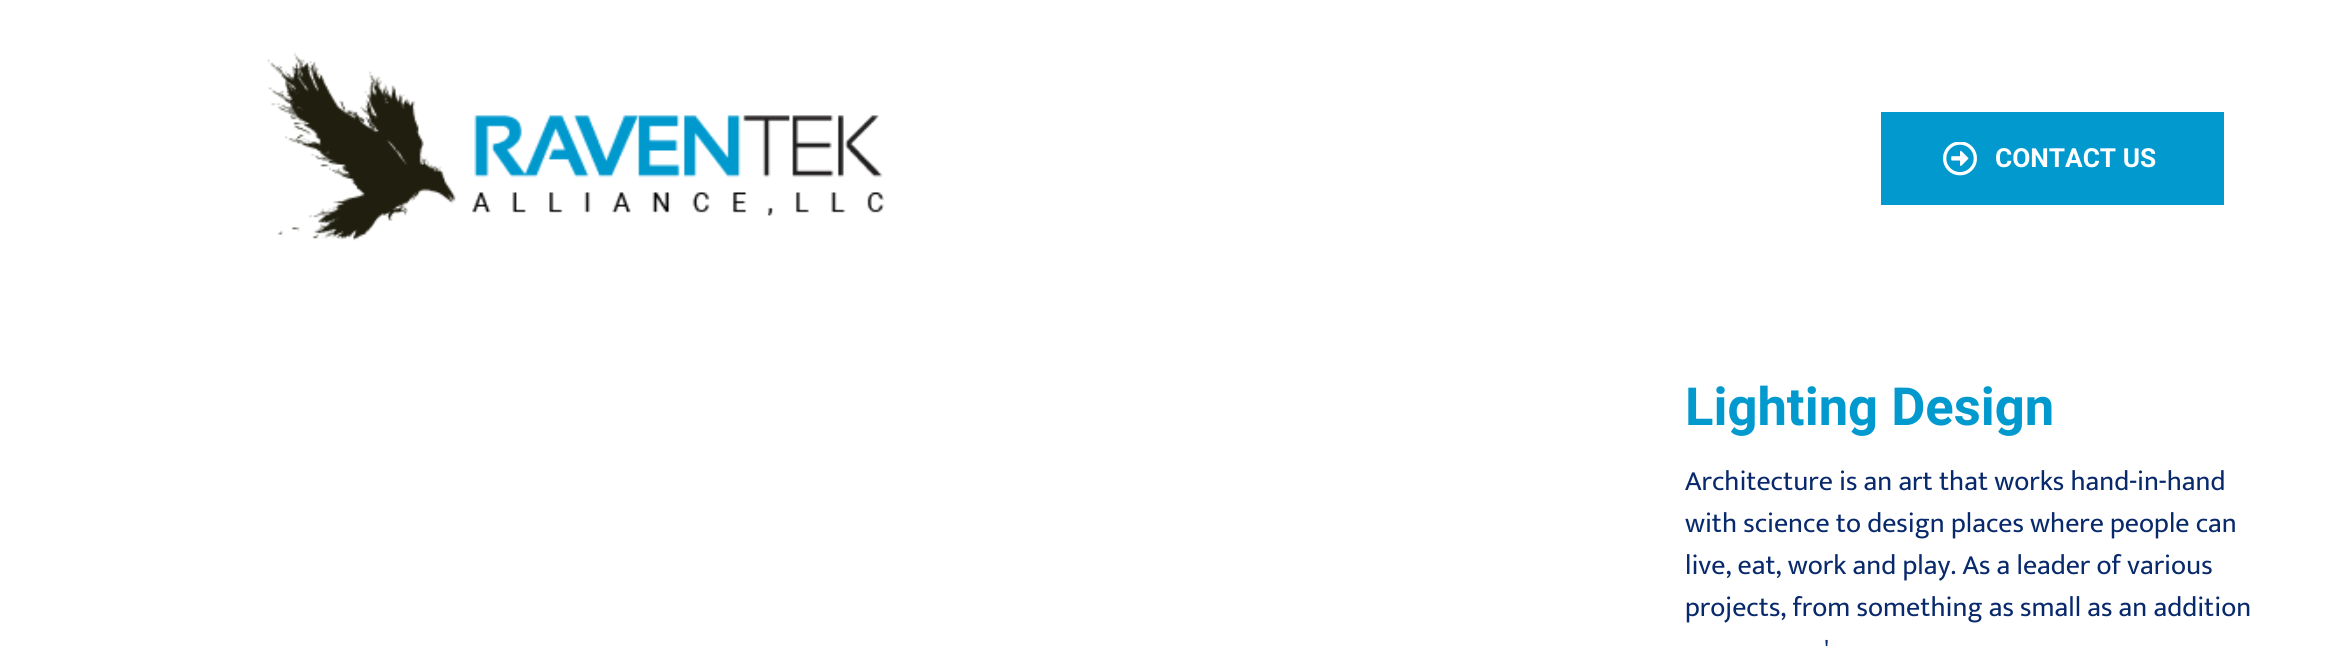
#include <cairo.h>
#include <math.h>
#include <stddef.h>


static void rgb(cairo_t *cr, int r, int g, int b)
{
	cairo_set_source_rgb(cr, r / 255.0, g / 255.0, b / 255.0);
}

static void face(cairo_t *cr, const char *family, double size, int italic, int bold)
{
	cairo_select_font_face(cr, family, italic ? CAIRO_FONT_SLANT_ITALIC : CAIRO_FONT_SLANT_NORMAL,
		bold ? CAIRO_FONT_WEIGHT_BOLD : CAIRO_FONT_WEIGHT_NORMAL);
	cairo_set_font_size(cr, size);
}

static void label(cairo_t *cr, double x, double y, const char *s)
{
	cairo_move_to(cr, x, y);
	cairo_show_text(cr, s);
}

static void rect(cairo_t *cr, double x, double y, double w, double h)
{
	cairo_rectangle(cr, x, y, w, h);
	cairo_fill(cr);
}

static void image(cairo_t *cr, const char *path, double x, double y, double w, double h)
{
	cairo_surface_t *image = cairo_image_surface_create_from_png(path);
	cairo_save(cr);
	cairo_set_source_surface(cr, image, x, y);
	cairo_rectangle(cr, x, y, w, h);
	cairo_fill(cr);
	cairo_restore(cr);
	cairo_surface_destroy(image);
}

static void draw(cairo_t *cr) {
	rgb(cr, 255, 255, 255);
	cairo_paint(cr);
	image(cr, "image0.png", 267, 52, 618, 189);
	rgb(cr, 1, 153, 206);
	rect(cr, 1881, 112, 343, 93);
	image(cr, "image1.png", 1943, 142, 34, 34);
	face(cr, "Roboto", 26.25, 0, 1);
	rgb(cr, 255, 255, 255);
	label(cr, 1995, 167, "CONTACT US");
	face(cr, "Heebo", 52.5, 0, 1);
	rgb(cr, 1, 153, 206);
	label(cr, 1685, 425, "Lighting Design");
	face(cr, "Mukta", 28, 0, 0);
	rgb(cr, 8, 41, 107);
	label(cr, 1685, 490, "Architecture is an art that works hand-in-hand");
	label(cr, 1685, 532, "with science to design places where people can");
	label(cr, 1685, 574, "live, eat, work and play. As a leader of various");
	label(cr, 1685, 616, "projects, from something as small as an addition");
	label(cr, 1824, 658, "'");
}

int main(void) {
	cairo_surface_t *surface = cairo_image_surface_create(CAIRO_FORMAT_RGB24, 2341, 653);
	cairo_t *cr = cairo_create(surface);
	cairo_font_options_t *options = cairo_font_options_create();
	cairo_font_options_set_hint_metrics(options, CAIRO_HINT_METRICS_OFF);
	cairo_font_options_set_hint_style(options, CAIRO_HINT_STYLE_NONE);
	cairo_set_font_options(cr, options);
	cairo_set_miter_limit(cr, 4);
	draw(cr);
	cairo_surface_write_to_png(surface, "render.png");
	cairo_font_options_destroy(options);
	cairo_destroy(cr);
	cairo_surface_destroy(surface);
	return 0;
}
